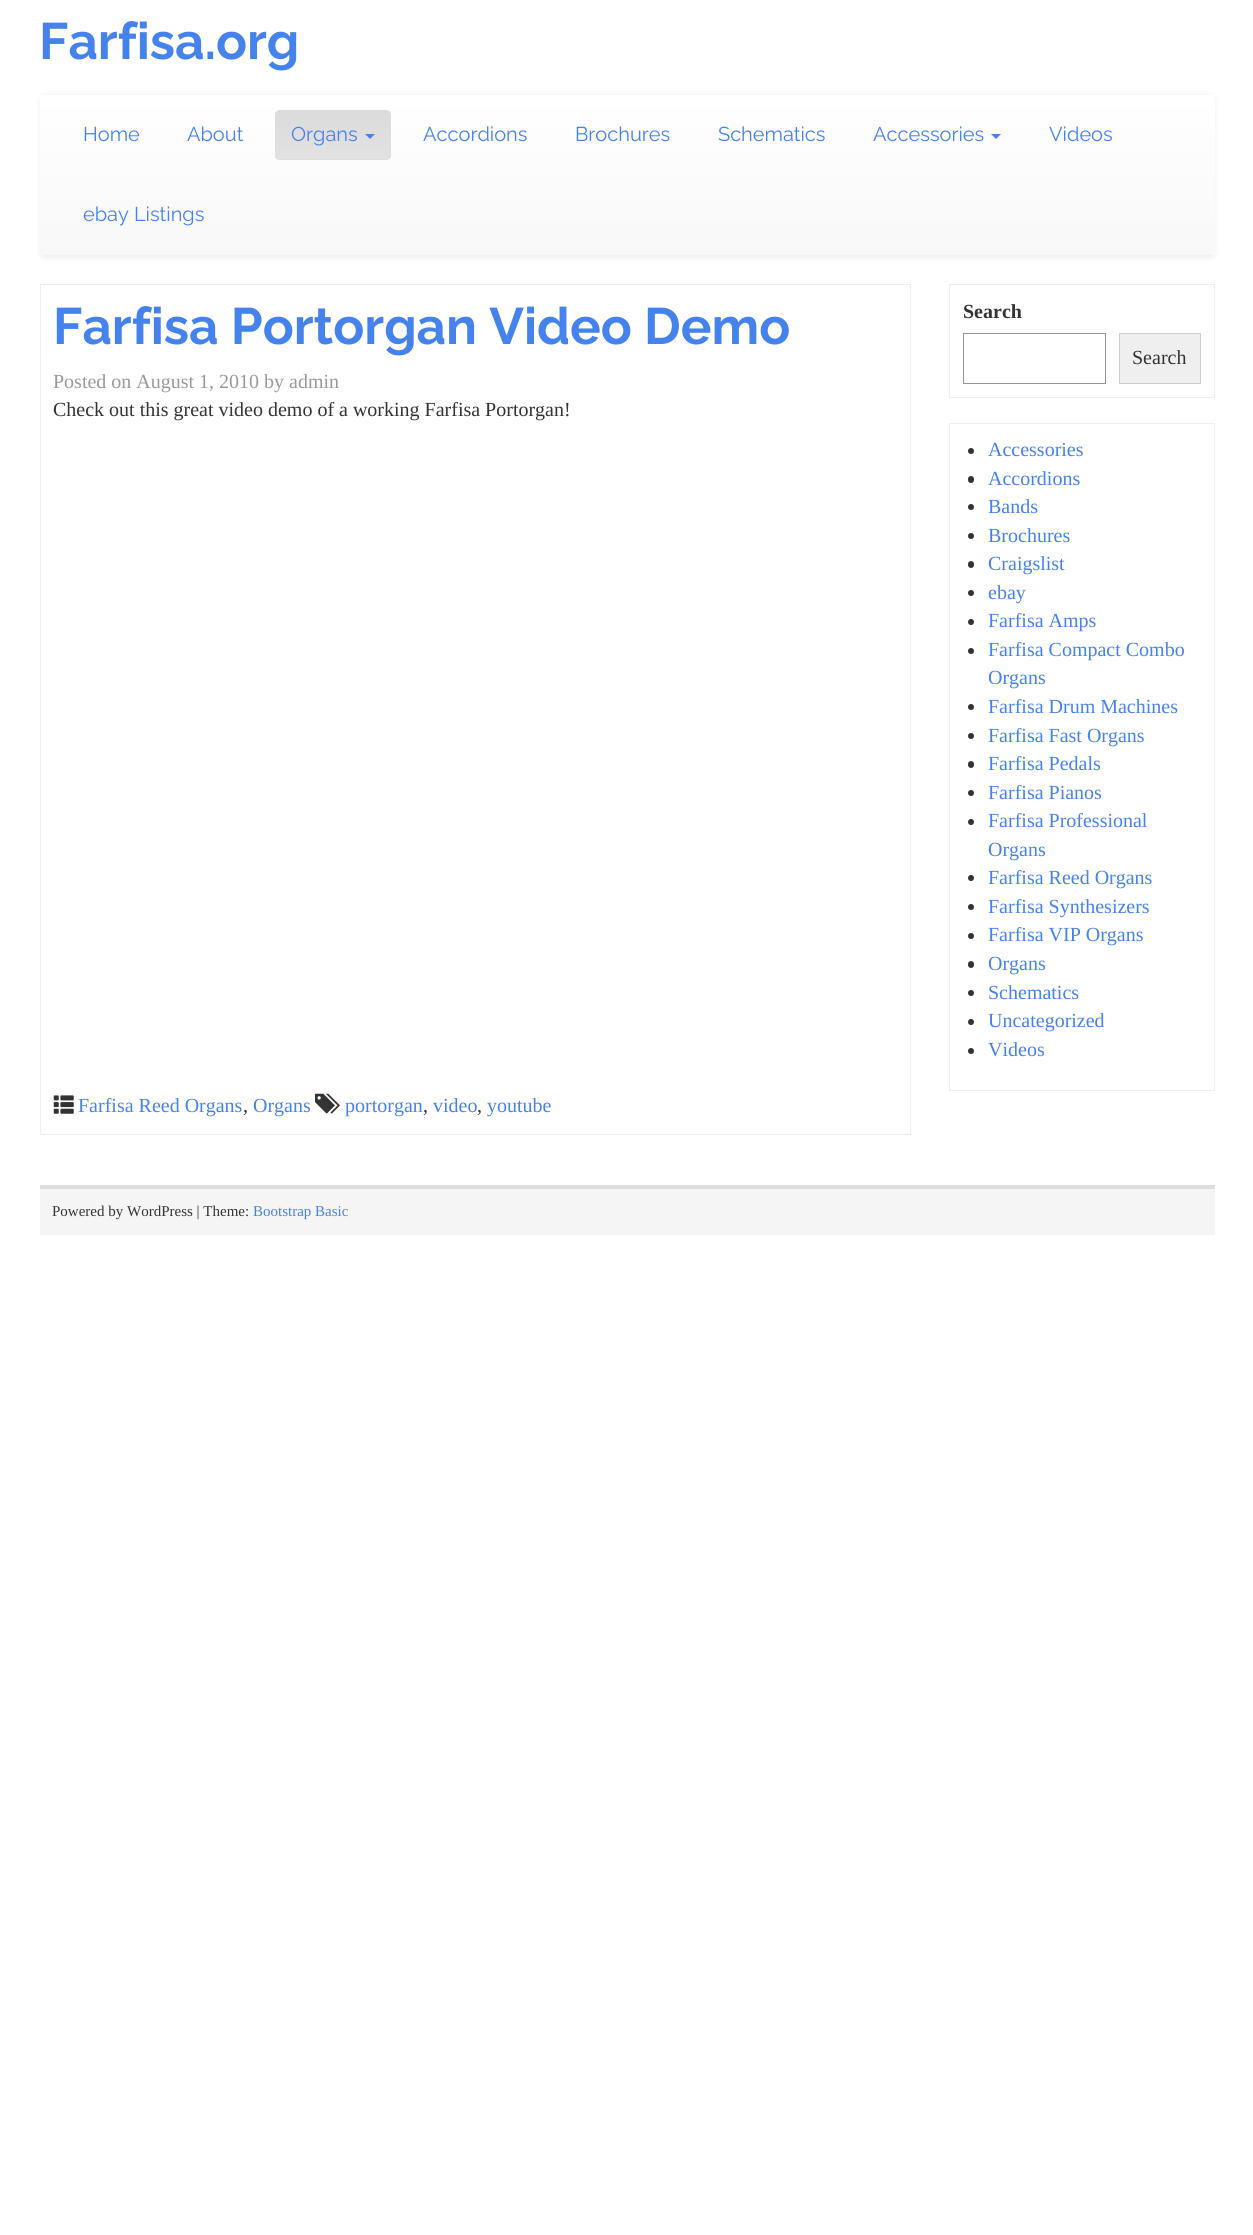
#include <cairo.h>
#include <math.h>
#include <stddef.h>


static void rgb(cairo_t *cr, int r, int g, int b)
{
	cairo_set_source_rgb(cr, r / 255.0, g / 255.0, b / 255.0);
}

static void face(cairo_t *cr, const char *family, double size, int italic, int bold)
{
	cairo_select_font_face(cr, family, italic ? CAIRO_FONT_SLANT_ITALIC : CAIRO_FONT_SLANT_NORMAL,
		bold ? CAIRO_FONT_WEIGHT_BOLD : CAIRO_FONT_WEIGHT_NORMAL);
	cairo_set_font_size(cr, size);
}

static void label(cairo_t *cr, double x, double y, const char *s)
{
	cairo_move_to(cr, x, y);
	cairo_show_text(cr, s);
}

static void rect(cairo_t *cr, double x, double y, double w, double h)
{
	cairo_rectangle(cr, x, y, w, h);
	cairo_fill(cr);
}

static void rrect(cairo_t *cr, double x, double y, double w, double h, double r)
{
	cairo_new_sub_path(cr);
	cairo_arc(cr, x + w - r, y + h - r, r, 0, M_PI / 2);
	cairo_arc(cr, x + r, y + h - r, r, M_PI / 2, M_PI);
	cairo_arc(cr, x + r, y + r, r, M_PI, 1.5 * M_PI);
	cairo_arc(cr, x + w - r, y + r, r, 1.5 * M_PI, 2 * M_PI);
	cairo_close_path(cr);
}

static void soft_shadow(cairo_t *cr, double x, double y, double w, double h, double r, double blur, double alpha)
{
	cairo_push_group_with_content(cr, CAIRO_CONTENT_ALPHA);
	cairo_set_operator(cr, CAIRO_OPERATOR_SOURCE);
	for (int i = 15; i >= -15 && fmin(w, h) + blur * i / 3 > 0; i -= 2) {
		double e = blur * i / 6;
		cairo_set_source_rgba(cr, 0, 0, 0, alpha * erfc((i - 1) / 8.5) / 2);
		rrect(cr, x - e, y - e, w + 2 * e, h + 2 * e, fmax(0, fmin(r + e + blur * .6, fmin(w, h) / 2 + e)));
		cairo_fill(cr);
	}
	cairo_pattern_t *soft = cairo_pop_group(cr);
	cairo_mask(cr, soft);
	cairo_pattern_destroy(soft);
}

static void image(cairo_t *cr, const char *path, double x, double y, double w, double h)
{
	cairo_surface_t *image = cairo_image_surface_create_from_png(path);
	cairo_save(cr);
	cairo_set_source_surface(cr, image, x, y);
	cairo_rectangle(cr, x, y, w, h);
	cairo_fill(cr);
	cairo_restore(cr);
	cairo_surface_destroy(image);
}

static void draw(cairo_t *cr) {
	cairo_pattern_t *gradient;
	rgb(cr, 255, 255, 255);
	cairo_paint(cr);
	face(cr, "Raleway", 51.25, 0, 1);
	rgb(cr, 69, 130, 236);
	label(cr, 39, 59, "Farfisa.org");
	rgb(cr, 0, 0, 0);
	soft_shadow(cr, 40, 95, 1175, 163, 5, 3, 0.07);
	cairo_save(cr);
	rrect(cr, 40, 94, 1175, 162, 5);
	cairo_clip(cr);
	gradient = cairo_pattern_create_linear(628, 95, 628, 255);
	cairo_pattern_add_color_stop_rgba(gradient, 0, 1, 1, 1, 1);
	cairo_pattern_add_color_stop_rgba(gradient, 1, 0.973, 0.973, 0.973, 1);
	cairo_set_source(cr, gradient);
	cairo_pattern_destroy(gradient);
	rect(cr, 40, 95, 1175, 160);
	cairo_restore(cr);
	face(cr, "Raleway", 20, 0, 0);
	rgb(cr, 69, 130, 236);
	label(cr, 83, 141, "Home");
	label(cr, 187, 141, "About");
	cairo_save(cr);
	rrect(cr, 275, 110, 116, 50, 5);
	cairo_clip(cr);
	gradient = cairo_pattern_create_linear(333, 111, 333, 159);
	cairo_pattern_add_color_stop_rgba(gradient, 0, 0.859, 0.859, 0.859, 1);
	cairo_pattern_add_color_stop_rgba(gradient, 1, 0.886, 0.886, 0.886, 1);
	cairo_set_source(cr, gradient);
	cairo_pattern_destroy(gradient);
	rect(cr, 275, 111, 116, 48);
	cairo_restore(cr);
	rrect(cr, 275.5, 110.5, 115, 49, 4.5);
	rgb(cr, 221, 221, 221);
	cairo_set_line_width(cr, 1);
	cairo_stroke(cr);
	rgb(cr, 69, 130, 236);
	label(cr, 291, 141, "Organs");
	cairo_new_path(cr);
	cairo_move_to(cr, 365, 134);
	cairo_line_to(cr, 375, 134);
	cairo_line_to(cr, 370, 139);
	cairo_close_path(cr);
	cairo_fill(cr);
	label(cr, 423, 141, "Accordions");
	label(cr, 575, 141, "Brochures");
	label(cr, 718, 141, "Schematics");
	label(cr, 873, 141, "Accessories");
	cairo_new_path(cr);
	cairo_move_to(cr, 991, 134);
	cairo_line_to(cr, 1001, 134);
	cairo_line_to(cr, 996, 139);
	cairo_close_path(cr);
	cairo_fill(cr);
	label(cr, 1049, 141, "Videos");
	label(cr, 83, 221, "ebay Listings");
	cairo_rectangle(cr, 40.5, 284.5, 870, 850);
	rgb(cr, 238, 238, 238);
	cairo_stroke(cr);
	face(cr, "Raleway", 51.25, 0, 1);
	rgb(cr, 69, 130, 236);
	label(cr, 53, 344, "Farfisa Portorgan Video Demo");
	face(cr, "Liberation Serif", 20, 0, 0);
	rgb(cr, 153, 153, 153);
	label(cr, 53, 388, "Posted on August 1, 2010 by admin");
	rgb(cr, 51, 51, 51);
	label(cr, 53, 416, "Check out this great video demo of a working Farfisa Portorgan!");
	image(cr, "image0.png", 53, 1095, 21, 19);
	rgb(cr, 69, 130, 236);
	label(cr, 78, 1112, "Farfisa Reed Organs");
	rgb(cr, 51, 51, 51);
	label(cr, 243, 1112, ",");
	rgb(cr, 69, 130, 236);
	label(cr, 253, 1112, "Organs");
	image(cr, "image1.png", 315, 1093, 25, 21);
	label(cr, 345, 1112, "portorgan");
	rgb(cr, 51, 51, 51);
	label(cr, 423, 1112, ",");
	rgb(cr, 69, 130, 236);
	label(cr, 433, 1112, "video");
	rgb(cr, 51, 51, 51);
	label(cr, 477, 1112, ",");
	rgb(cr, 69, 130, 236);
	label(cr, 487, 1112, "youtube");
	cairo_rectangle(cr, 949.5, 284.5, 265, 113);
	rgb(cr, 238, 238, 238);
	cairo_stroke(cr);
	face(cr, "Liberation Serif", 20, 0, 1);
	rgb(cr, 51, 51, 51);
	label(cr, 963, 318, "Search");
	cairo_rectangle(cr, 963.5, 333.5, 142, 50);
	rgb(cr, 148, 148, 148);
	cairo_stroke(cr);
	rgb(cr, 239, 239, 239);
	cairo_rectangle(cr, 1119.5, 333.5, 81, 50);
	cairo_fill_preserve(cr);
	rgb(cr, 204, 204, 204);
	cairo_stroke(cr);
	face(cr, "Liberation Serif", 20, 0, 0);
	rgb(cr, 51, 51, 51);
	label(cr, 1132, 364, "Search");
	cairo_rectangle(cr, 949.5, 423.5, 265, 667);
	rgb(cr, 238, 238, 238);
	cairo_stroke(cr);
	rgb(cr, 51, 51, 51);
	cairo_arc(cr, 971, 451, 3, 0, 2 * M_PI);
	cairo_fill(cr);
	rgb(cr, 69, 130, 236);
	label(cr, 988, 456, "Accessories");
	rgb(cr, 51, 51, 51);
	rrect(cr, 968, 476, 6, 7, 3);
	cairo_fill(cr);
	rgb(cr, 69, 130, 236);
	label(cr, 988, 485, "Accordions");
	rgb(cr, 51, 51, 51);
	cairo_new_path(cr);
	cairo_arc(cr, 971, 507, 3, 0, 2 * M_PI);
	cairo_fill(cr);
	rgb(cr, 69, 130, 236);
	label(cr, 988, 513, "Bands");
	rgb(cr, 51, 51, 51);
	cairo_new_path(cr);
	cairo_arc(cr, 971, 536, 3, 0, 2 * M_PI);
	cairo_fill(cr);
	rgb(cr, 69, 130, 236);
	label(cr, 988, 542, "Brochures");
	rgb(cr, 51, 51, 51);
	rrect(cr, 968, 561, 6, 7, 3);
	cairo_fill(cr);
	rgb(cr, 69, 130, 236);
	label(cr, 988, 570, "Craigslist");
	rgb(cr, 51, 51, 51);
	cairo_new_path(cr);
	cairo_arc(cr, 971, 593, 3, 0, 2 * M_PI);
	cairo_fill(cr);
	rgb(cr, 69, 130, 236);
	label(cr, 988, 599, "ebay");
	rgb(cr, 51, 51, 51);
	cairo_new_path(cr);
	cairo_arc(cr, 971, 622, 3, 0, 2 * M_PI);
	cairo_fill(cr);
	rgb(cr, 69, 130, 236);
	label(cr, 988, 627, "Farfisa Amps");
	rgb(cr, 51, 51, 51);
	cairo_new_path(cr);
	cairo_arc(cr, 971, 651, 3, 0, 2 * M_PI);
	cairo_fill(cr);
	rgb(cr, 69, 130, 236);
	label(cr, 988, 656, "Farfisa Compact Combo");
	label(cr, 988, 684, "Organs");
	rgb(cr, 51, 51, 51);
	cairo_new_path(cr);
	cairo_arc(cr, 971, 707, 3, 0, 2 * M_PI);
	cairo_fill(cr);
	rgb(cr, 69, 130, 236);
	label(cr, 988, 713, "Farfisa Drum Machines");
	rgb(cr, 51, 51, 51);
	cairo_new_path(cr);
	cairo_arc(cr, 971, 736, 3, 0, 2 * M_PI);
	cairo_fill(cr);
	rgb(cr, 69, 130, 236);
	label(cr, 988, 742, "Farfisa Fast Organs");
	rgb(cr, 51, 51, 51);
	rrect(cr, 968, 761, 6, 7, 3);
	cairo_fill(cr);
	rgb(cr, 69, 130, 236);
	label(cr, 988, 770, "Farfisa Pedals");
	rgb(cr, 51, 51, 51);
	cairo_new_path(cr);
	cairo_arc(cr, 971, 793, 3, 0, 2 * M_PI);
	cairo_fill(cr);
	rgb(cr, 69, 130, 236);
	label(cr, 988, 799, "Farfisa Pianos");
	rgb(cr, 51, 51, 51);
	cairo_new_path(cr);
	cairo_arc(cr, 971, 822, 3, 0, 2 * M_PI);
	cairo_fill(cr);
	rgb(cr, 69, 130, 236);
	label(cr, 988, 827, "Farfisa Professional");
	label(cr, 988, 856, "Organs");
	rgb(cr, 51, 51, 51);
	cairo_new_path(cr);
	cairo_arc(cr, 971, 878, 3, 0, 2 * M_PI);
	cairo_fill(cr);
	rgb(cr, 69, 130, 236);
	label(cr, 988, 884, "Farfisa Reed Organs");
	rgb(cr, 51, 51, 51);
	cairo_new_path(cr);
	cairo_arc(cr, 971, 907, 3, 0, 2 * M_PI);
	cairo_fill(cr);
	rgb(cr, 69, 130, 236);
	label(cr, 988, 913, "Farfisa Synthesizers");
	rgb(cr, 51, 51, 51);
	cairo_new_path(cr);
	cairo_arc(cr, 971, 936, 3, 0, 2 * M_PI);
	cairo_fill(cr);
	rgb(cr, 69, 130, 236);
	label(cr, 988, 941, "Farfisa VIP Organs");
	rgb(cr, 51, 51, 51);
	rrect(cr, 968, 961, 6, 7, 3);
	cairo_fill(cr);
	rgb(cr, 69, 130, 236);
	label(cr, 988, 970, "Organs");
	rgb(cr, 51, 51, 51);
	cairo_new_path(cr);
	cairo_arc(cr, 971, 993, 3, 0, 2 * M_PI);
	cairo_fill(cr);
	rgb(cr, 69, 130, 236);
	label(cr, 988, 999, "Schematics");
	rgb(cr, 51, 51, 51);
	cairo_new_path(cr);
	cairo_arc(cr, 971, 1022, 3, 0, 2 * M_PI);
	cairo_fill(cr);
	rgb(cr, 69, 130, 236);
	label(cr, 988, 1027, "Uncategorized");
	rgb(cr, 51, 51, 51);
	cairo_new_path(cr);
	cairo_arc(cr, 971, 1051, 3, 0, 2 * M_PI);
	cairo_fill(cr);
	rgb(cr, 69, 130, 236);
	label(cr, 988, 1056, "Videos");
	rgb(cr, 245, 245, 245);
	rect(cr, 40, 1189, 1175, 46);
	rgb(cr, 221, 221, 221);
	rect(cr, 40, 1185, 1175, 4);
	face(cr, "Liberation Serif", 15, 0, 0);
	rgb(cr, 51, 51, 51);
	label(cr, 52, 1216, "Powered by WordPress | Theme:");
	rgb(cr, 69, 130, 236);
	label(cr, 253, 1216, "Bootstrap Basic");
}

int main(void) {
	cairo_surface_t *surface = cairo_image_surface_create(CAIRO_FORMAT_RGB24, 1253, 2235);
	cairo_t *cr = cairo_create(surface);
	cairo_font_options_t *options = cairo_font_options_create();
	cairo_font_options_set_hint_metrics(options, CAIRO_HINT_METRICS_OFF);
	cairo_font_options_set_hint_style(options, CAIRO_HINT_STYLE_NONE);
	cairo_set_font_options(cr, options);
	cairo_set_miter_limit(cr, 4);
	draw(cr);
	cairo_surface_write_to_png(surface, "render.png");
	cairo_font_options_destroy(options);
	cairo_destroy(cr);
	cairo_surface_destroy(surface);
	return 0;
}
